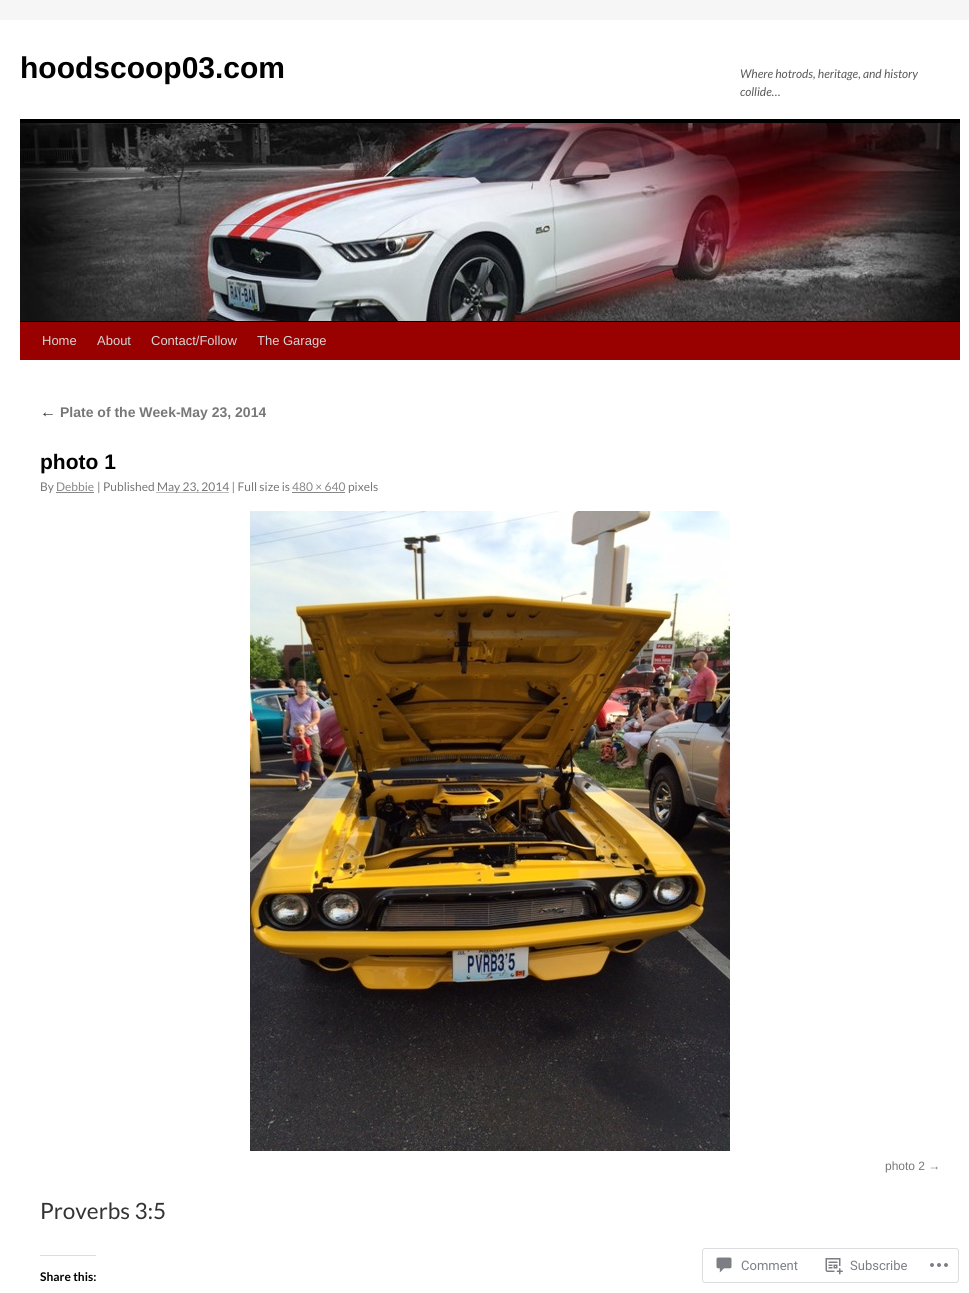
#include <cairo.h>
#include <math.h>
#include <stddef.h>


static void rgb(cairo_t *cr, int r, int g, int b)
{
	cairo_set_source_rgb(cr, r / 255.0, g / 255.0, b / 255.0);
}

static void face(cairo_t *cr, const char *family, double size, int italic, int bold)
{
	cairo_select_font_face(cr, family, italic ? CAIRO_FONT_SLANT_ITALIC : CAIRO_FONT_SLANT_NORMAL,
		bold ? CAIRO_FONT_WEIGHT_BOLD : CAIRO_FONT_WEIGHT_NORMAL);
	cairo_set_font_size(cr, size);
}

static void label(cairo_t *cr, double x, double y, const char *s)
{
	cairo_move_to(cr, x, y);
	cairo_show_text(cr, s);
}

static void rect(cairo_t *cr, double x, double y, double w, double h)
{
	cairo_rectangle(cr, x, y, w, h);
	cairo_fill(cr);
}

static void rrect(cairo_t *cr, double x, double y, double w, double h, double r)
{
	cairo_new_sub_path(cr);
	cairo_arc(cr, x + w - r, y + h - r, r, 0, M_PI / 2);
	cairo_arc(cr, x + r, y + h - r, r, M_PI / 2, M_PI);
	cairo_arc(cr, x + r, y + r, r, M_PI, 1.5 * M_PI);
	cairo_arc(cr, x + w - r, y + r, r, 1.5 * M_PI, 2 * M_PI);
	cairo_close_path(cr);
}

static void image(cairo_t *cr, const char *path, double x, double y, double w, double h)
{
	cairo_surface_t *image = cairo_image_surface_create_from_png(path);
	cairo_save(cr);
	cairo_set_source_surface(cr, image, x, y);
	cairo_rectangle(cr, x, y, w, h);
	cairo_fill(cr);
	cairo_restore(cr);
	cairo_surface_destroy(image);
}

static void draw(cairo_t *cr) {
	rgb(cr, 246, 246, 246);
	cairo_paint(cr);
	rgb(cr, 255, 255, 255);
	rect(cr, 0, 20, 969, 1273);
	face(cr, "Liberation Sans", 30, 0, 1);
	rgb(cr, 0, 0, 0);
	label(cr, 20, 78, "hoodscoop03.com");
	face(cr, "Lato", 12, 1, 0);
	rgb(cr, 89, 89, 89);
	label(cr, 740, 78, "Where hotrods, heritage, and history");
	label(cr, 740, 96, "collide…");
	rgb(cr, 0, 0, 0);
	rect(cr, 20, 119, 940, 4);
	rect(cr, 20, 321, 940, 1);
	image(cr, "image0.png", 20, 123, 940, 198);
	rgb(cr, 153, 1, 0);
	rect(cr, 20, 322, 940, 38);
	face(cr, "Liberation Sans", 13, 0, 0);
	rgb(cr, 214, 214, 214);
	label(cr, 42, 345, "Home");
	label(cr, 97, 345, "About");
	label(cr, 151, 345, "Contact/Follow");
	label(cr, 257, 345, "The Garage");
	face(cr, "Liberation Serif", 16, 1, 0);
	rgb(cr, 51, 51, 51);
	label(cr, 40, 417, "←");
	face(cr, "Liberation Sans", 14, 0, 1);
	rgb(cr, 119, 119, 119);
	label(cr, 60, 417, "Plate of the Week-May 23, 2014");
	face(cr, "Liberation Sans", 21, 0, 1);
	rgb(cr, 0, 0, 0);
	label(cr, 40, 469, "photo 1");
	face(cr, "Lato", 12, 0, 0);
	rgb(cr, 119, 119, 119);
	label(cr, 40, 491, "By");
	rgb(cr, 136, 136, 136);
	label(cr, 56, 491, "Debbie");
	rect(cr, 56, 492, 38, 1);
	rgb(cr, 119, 119, 119);
	label(cr, 97, 491, "| Published");
	cairo_new_path(cr);
	cairo_move_to(cr, 156.5, 492.5);
	cairo_line_to(cr, 229, 492.5);
	cairo_set_line_width(cr, 1);
	cairo_set_dash(cr, (double[]){1, 1}, 2, 0);
	cairo_stroke(cr);
	label(cr, 157, 491, "May 23, 2014 | Full size is");
	rgb(cr, 136, 136, 136);
	label(cr, 292, 491, "480 × 640");
	rect(cr, 292, 492, 53, 1);
	rgb(cr, 119, 119, 119);
	label(cr, 348, 491, "pixels");
	image(cr, "image1.png", 250, 511, 480, 640);
	face(cr, "Liberation Sans", 12, 0, 0);
	label(cr, 885, 1170, "photo 2 →");
	face(cr, "Lato", 22.5, 0, 0);
	rgb(cr, 51, 51, 51);
	label(cr, 40, 1219, "Proverbs 3:5");
	rgb(cr, 220, 220, 222);
	rect(cr, 40, 1255, 56, 1);
	face(cr, "Lato", 12, 0, 1);
	rgb(cr, 0, 0, 0);
	label(cr, 40, 1281, "Share this:");
	rrect(cr, 702.5, 1248.5, 256, 34, 2.5);
	rgb(cr, 221, 221, 223);
	cairo_set_dash(cr, NULL, 0, 0);
	cairo_stroke(cr);
	image(cr, "image2.png", 716, 1257, 16, 16);
	face(cr, "Roboto", 13, 0, 0);
	rgb(cr, 123, 127, 133);
	label(cr, 741, 1270, "Comment");
	image(cr, "image3.png", 825, 1258, 18, 17);
	label(cr, 850, 1270, "Subscribe");
	image(cr, "image4.png", 930, 1263, 18, 4);
}

int main(void) {
	cairo_surface_t *surface = cairo_image_surface_create(CAIRO_FORMAT_RGB24, 969, 1293);
	cairo_t *cr = cairo_create(surface);
	cairo_font_options_t *options = cairo_font_options_create();
	cairo_font_options_set_hint_metrics(options, CAIRO_HINT_METRICS_OFF);
	cairo_font_options_set_hint_style(options, CAIRO_HINT_STYLE_NONE);
	cairo_set_font_options(cr, options);
	cairo_set_miter_limit(cr, 4);
	draw(cr);
	cairo_surface_write_to_png(surface, "render.png");
	cairo_font_options_destroy(options);
	cairo_destroy(cr);
	cairo_surface_destroy(surface);
	return 0;
}
